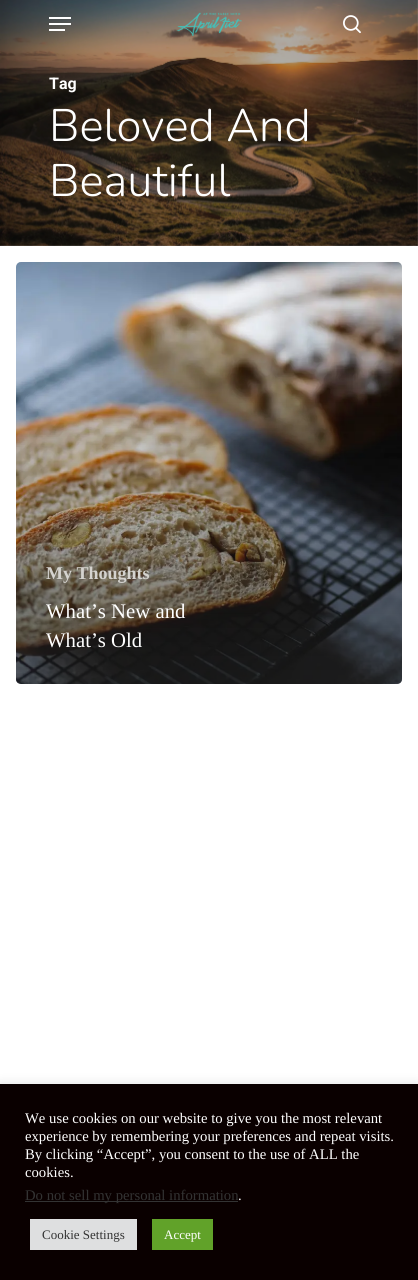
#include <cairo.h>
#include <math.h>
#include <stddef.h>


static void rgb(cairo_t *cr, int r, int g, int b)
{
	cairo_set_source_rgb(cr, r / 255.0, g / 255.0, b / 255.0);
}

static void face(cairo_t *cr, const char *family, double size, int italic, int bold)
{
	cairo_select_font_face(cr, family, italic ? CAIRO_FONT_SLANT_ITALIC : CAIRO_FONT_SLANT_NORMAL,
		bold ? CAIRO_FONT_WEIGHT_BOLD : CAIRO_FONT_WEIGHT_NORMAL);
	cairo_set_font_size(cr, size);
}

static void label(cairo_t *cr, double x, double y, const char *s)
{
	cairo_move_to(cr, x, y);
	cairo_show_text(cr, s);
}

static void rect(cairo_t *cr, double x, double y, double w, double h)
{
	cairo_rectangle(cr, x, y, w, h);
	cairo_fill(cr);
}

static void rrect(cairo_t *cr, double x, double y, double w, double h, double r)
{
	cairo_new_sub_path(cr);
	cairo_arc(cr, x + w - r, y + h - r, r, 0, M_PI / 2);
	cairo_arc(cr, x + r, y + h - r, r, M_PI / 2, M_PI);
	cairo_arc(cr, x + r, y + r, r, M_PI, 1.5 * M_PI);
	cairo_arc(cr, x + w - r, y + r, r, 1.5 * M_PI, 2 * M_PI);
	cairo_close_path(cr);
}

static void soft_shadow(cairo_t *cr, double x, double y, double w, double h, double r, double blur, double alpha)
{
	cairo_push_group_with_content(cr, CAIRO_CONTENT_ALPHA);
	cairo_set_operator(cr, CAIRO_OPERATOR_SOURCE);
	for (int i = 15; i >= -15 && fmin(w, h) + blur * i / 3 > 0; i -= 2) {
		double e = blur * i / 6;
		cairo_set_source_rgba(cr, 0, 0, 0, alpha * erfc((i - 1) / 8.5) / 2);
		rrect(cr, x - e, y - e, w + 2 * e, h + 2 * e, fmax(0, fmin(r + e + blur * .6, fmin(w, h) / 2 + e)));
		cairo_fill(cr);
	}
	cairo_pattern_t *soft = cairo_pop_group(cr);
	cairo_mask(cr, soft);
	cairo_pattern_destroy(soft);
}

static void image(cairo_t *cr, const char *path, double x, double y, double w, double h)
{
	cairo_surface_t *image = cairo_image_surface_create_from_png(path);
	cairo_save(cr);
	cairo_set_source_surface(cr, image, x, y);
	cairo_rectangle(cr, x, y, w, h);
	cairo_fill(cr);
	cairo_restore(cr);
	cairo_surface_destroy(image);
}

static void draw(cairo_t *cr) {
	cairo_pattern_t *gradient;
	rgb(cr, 255, 255, 255);
	cairo_paint(cr);
	image(cr, "image2.png", 0, 0, 418, 246);
	image(cr, "image0.png", 176, 12, 66, 24);
	rgb(cr, 255, 255, 255);
	rect(cr, 49, 17, 22, 2);
	rect(cr, 49, 29, 16, 2);
	rect(cr, 49, 23, 22, 2);
	image(cr, "image1.png", 343, 15, 18, 19);
	face(cr, "Roboto", 16, 0, 1);
	label(cr, 49, 89, "Tag");
	face(cr, "Nunito Light", 45.5, 0, 0);
	label(cr, 49, 141, "Beloved And");
	label(cr, 49, 196, "Beautiful");
	image(cr, "image3.png", 16, 262, 386, 422);
	gradient = cairo_pattern_create_linear(210, 368, 210, 687);
	cairo_pattern_add_color_stop_rgba(gradient, 0, 0.137, 0.137, 0.137, 0);
	cairo_pattern_add_color_stop_rgba(gradient, 1, 0.137, 0.137, 0.137, 0.65);
	cairo_set_source(cr, gradient);
	cairo_pattern_destroy(gradient);
	cairo_new_path(cr);
	cairo_move_to(cr, 16, 368);
	cairo_line_to(cr, 402, 368);
	cairo_line_to(cr, 402, 679);
	cairo_curve_to(cr, 402, 682, 400, 684, 397, 684);
	cairo_line_to(cr, 21, 684);
	cairo_curve_to(cr, 18, 684, 16, 682, 16, 679);
	cairo_close_path(cr);
	cairo_fill(cr);
	face(cr, "Liberation Serif", 18, 0, 1);
	rgb(cr, 213, 211, 207);
	label(cr, 46, 579, "My Thoughts");
	face(cr, "Liberation Serif", 20.75, 0, 0);
	rgb(cr, 255, 255, 255);
	label(cr, 46, 618, "What’s New and");
	label(cr, 46, 647, "What’s Old");
	rgb(cr, 172, 171, 171);
	soft_shadow(cr, 0, 1083, 418, 196, 0, 5, 0.3);
	rgb(cr, 10, 0, 0);
	rect(cr, 0, 1084, 418, 196);
	face(cr, "Liberation Serif", 14.7, 0, 0);
	rgb(cr, 255, 255, 255);
	label(cr, 25, 1123, "We use cookies on our website to give you the most relevant");
	label(cr, 25, 1141, "experience by remembering your preferences and repeat visits.");
	label(cr, 25, 1159, "By clicking “Accept”, you consent to the use of ALL the");
	label(cr, 25, 1177, "cookies.");
	rgb(cr, 51, 51, 51);
	rect(cr, 25, 1201, 213, 1);
	label(cr, 25, 1200, "Do not sell my personal information");
	rgb(cr, 255, 255, 255);
	label(cr, 238, 1200, ".");
	rgb(cr, 222, 223, 224);
	rect(cr, 30, 1219, 107, 31);
	face(cr, "Liberation Serif", 13, 0, 0);
	rgb(cr, 51, 51, 51);
	label(cr, 42, 1239, "Cookie Settings");
	rgb(cr, 97, 162, 41);
	rect(cr, 152, 1219, 61, 31);
	rgb(cr, 255, 255, 255);
	label(cr, 164, 1239, "Accept");
}

int main(void) {
	cairo_surface_t *surface = cairo_image_surface_create(CAIRO_FORMAT_RGB24, 418, 1280);
	cairo_t *cr = cairo_create(surface);
	cairo_font_options_t *options = cairo_font_options_create();
	cairo_font_options_set_hint_metrics(options, CAIRO_HINT_METRICS_OFF);
	cairo_font_options_set_hint_style(options, CAIRO_HINT_STYLE_NONE);
	cairo_set_font_options(cr, options);
	cairo_set_miter_limit(cr, 4);
	draw(cr);
	cairo_surface_write_to_png(surface, "render.png");
	cairo_font_options_destroy(options);
	cairo_destroy(cr);
	cairo_surface_destroy(surface);
	return 0;
}
